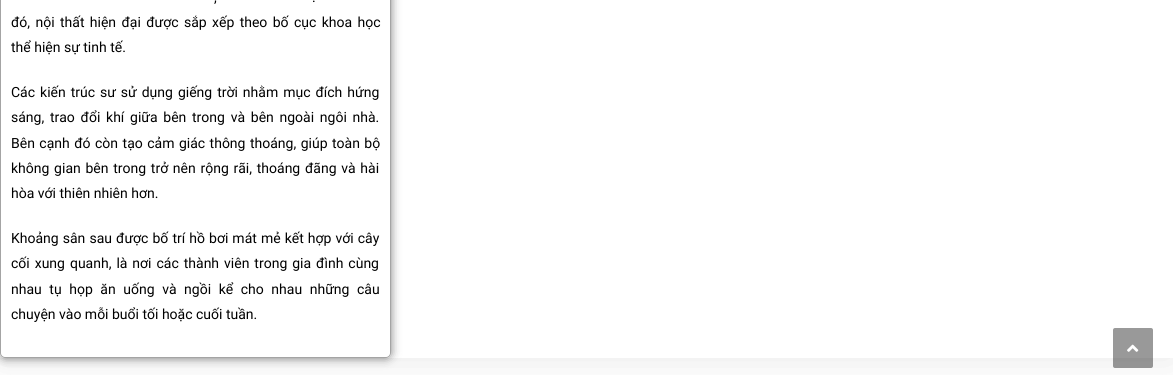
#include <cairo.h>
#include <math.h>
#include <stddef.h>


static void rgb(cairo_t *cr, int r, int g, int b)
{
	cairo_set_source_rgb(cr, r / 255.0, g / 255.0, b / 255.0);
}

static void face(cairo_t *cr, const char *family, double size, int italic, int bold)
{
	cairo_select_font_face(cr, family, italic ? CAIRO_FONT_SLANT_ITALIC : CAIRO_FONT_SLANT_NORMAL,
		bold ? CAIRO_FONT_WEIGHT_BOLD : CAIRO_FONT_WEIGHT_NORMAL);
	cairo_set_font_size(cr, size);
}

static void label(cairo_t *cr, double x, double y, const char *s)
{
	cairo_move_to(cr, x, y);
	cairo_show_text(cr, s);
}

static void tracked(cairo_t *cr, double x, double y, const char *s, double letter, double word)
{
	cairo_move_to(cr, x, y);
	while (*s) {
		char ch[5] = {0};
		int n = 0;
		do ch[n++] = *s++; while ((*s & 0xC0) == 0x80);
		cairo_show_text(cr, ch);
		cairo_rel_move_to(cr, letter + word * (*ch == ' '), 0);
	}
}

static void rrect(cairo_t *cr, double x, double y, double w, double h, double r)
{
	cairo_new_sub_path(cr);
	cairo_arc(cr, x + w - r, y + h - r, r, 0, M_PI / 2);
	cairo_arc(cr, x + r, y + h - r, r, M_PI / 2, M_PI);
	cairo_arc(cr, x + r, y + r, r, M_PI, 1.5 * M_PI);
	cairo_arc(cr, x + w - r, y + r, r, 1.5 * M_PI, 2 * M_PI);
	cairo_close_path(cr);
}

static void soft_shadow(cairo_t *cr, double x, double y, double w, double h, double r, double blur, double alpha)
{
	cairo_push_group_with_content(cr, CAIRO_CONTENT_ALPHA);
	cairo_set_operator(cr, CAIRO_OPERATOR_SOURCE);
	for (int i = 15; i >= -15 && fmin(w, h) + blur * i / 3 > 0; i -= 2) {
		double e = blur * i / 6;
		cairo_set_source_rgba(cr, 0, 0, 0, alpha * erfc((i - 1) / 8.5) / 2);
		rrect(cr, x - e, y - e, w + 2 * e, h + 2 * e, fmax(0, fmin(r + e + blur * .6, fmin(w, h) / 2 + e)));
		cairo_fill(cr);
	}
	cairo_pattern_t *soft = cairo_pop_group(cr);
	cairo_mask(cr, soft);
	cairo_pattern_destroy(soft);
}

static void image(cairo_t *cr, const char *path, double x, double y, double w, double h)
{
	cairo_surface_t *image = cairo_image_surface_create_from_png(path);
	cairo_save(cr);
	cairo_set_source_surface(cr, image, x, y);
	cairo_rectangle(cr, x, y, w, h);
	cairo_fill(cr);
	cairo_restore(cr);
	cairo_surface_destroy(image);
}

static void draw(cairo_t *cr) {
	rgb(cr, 255, 255, 255);
	cairo_paint(cr);
	cairo_save(cr);
	cairo_rectangle(cr, 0, 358, 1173, 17);
	cairo_clip(cr);
	rgb(cr, 0, 0, 0);
	soft_shadow(cr, 0, -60, 1173, 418, 0, 20, 0.1);
	cairo_restore(cr);
	cairo_save(cr);
	cairo_set_fill_rule(cr, CAIRO_FILL_RULE_EVEN_ODD);
	cairo_new_path(cr);
	cairo_move_to(cr, 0, 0);
	cairo_line_to(cr, 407, 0);
	cairo_line_to(cr, 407, 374);
	cairo_line_to(cr, 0, 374);
	cairo_close_path(cr);
	cairo_move_to(cr, 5, -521);
	cairo_line_to(cr, 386, -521);
	cairo_curve_to(cr, 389, -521, 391, -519, 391, -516);
	cairo_line_to(cr, 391, 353);
	cairo_curve_to(cr, 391, 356, 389, 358, 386, 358);
	cairo_line_to(cr, 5, 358);
	cairo_curve_to(cr, 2, 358, 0, 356, 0, 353);
	cairo_line_to(cr, 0, -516);
	cairo_curve_to(cr, 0, -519, 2, -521, 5, -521);
	cairo_close_path(cr);
	cairo_clip(cr);
	rgb(cr, 0, 0, 0);
	soft_shadow(cr, 0, -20, 391, 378, 5, 5, 0.5);
	cairo_restore(cr);
	rrect(cr, 0.5, -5.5, 390, 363, 4.5);
	cairo_set_source_rgba(cr, 0.478, 0.478, 0.478, 0.68);
	cairo_set_line_width(cr, 1);
	cairo_stroke(cr);
	face(cr, "Roboto", 14, 0, 0);
	rgb(cr, 0, 0, 0);
	tracked(cr, 214, 2, ",", 0, 1);
	tracked(cr, 312, 2, ".", 0, 1);
	tracked(cr, 11, 27, "đó, nội thất hiện đại được sắp xếp theo bố cục khoa học", 0, 1.9);
	label(cr, 11, 52, "thể hiện sự tinh tế.");
	tracked(cr, 11, 97, "Các kiến trúc sư sử dụng giếng trời nhằm mục đích hứng", 0, 1.5);
	tracked(cr, 11, 122, "sáng, trao đổi khí giữa bên trong và bên ngoài ngôi nhà.", 0, 2.25);
	tracked(cr, 11, 148, "Bên cạnh đó còn tạo cảm giác thông thoáng, giúp toàn bộ", 0, 1);
	tracked(cr, 11, 173, "không gian bên trong trở nên rộng rãi, thoáng đãng và hài", 0, 1.25);
	label(cr, 11, 198, "hòa với thiên nhiên hơn.");
	tracked(cr, 11, 243, "Khoảng sân sau được bố trí hồ bơi mát mẻ kết hợp với cây", 0, 0.6);
	tracked(cr, 11, 268, "cối xung quanh, là nơi các thành viên trong gia đình cùng", 0, 1.5);
	tracked(cr, 11, 294, "nhau tụ họp ăn uống và ngồi kể cho nhau những câu", 0, 4.1);
	label(cr, 11, 319, "chuyện vào mỗi buổi tối hoặc cuối tuần.");
	cairo_set_source_rgba(cr, 0, 0, 0, 0.4);
	rrect(cr, 1113, 328, 40, 40, 2);
	cairo_fill(cr);
	image(cr, "image0.png", 1127, 344, 12, 8);
}

int main(void) {
	cairo_surface_t *surface = cairo_image_surface_create(CAIRO_FORMAT_RGB24, 1173, 388);
	cairo_t *cr = cairo_create(surface);
	cairo_font_options_t *options = cairo_font_options_create();
	cairo_font_options_set_hint_metrics(options, CAIRO_HINT_METRICS_OFF);
	cairo_font_options_set_hint_style(options, CAIRO_HINT_STYLE_NONE);
	cairo_set_font_options(cr, options);
	cairo_set_miter_limit(cr, 4);
	draw(cr);
	cairo_surface_write_to_png(surface, "render.png");
	cairo_font_options_destroy(options);
	cairo_destroy(cr);
	cairo_surface_destroy(surface);
	return 0;
}
